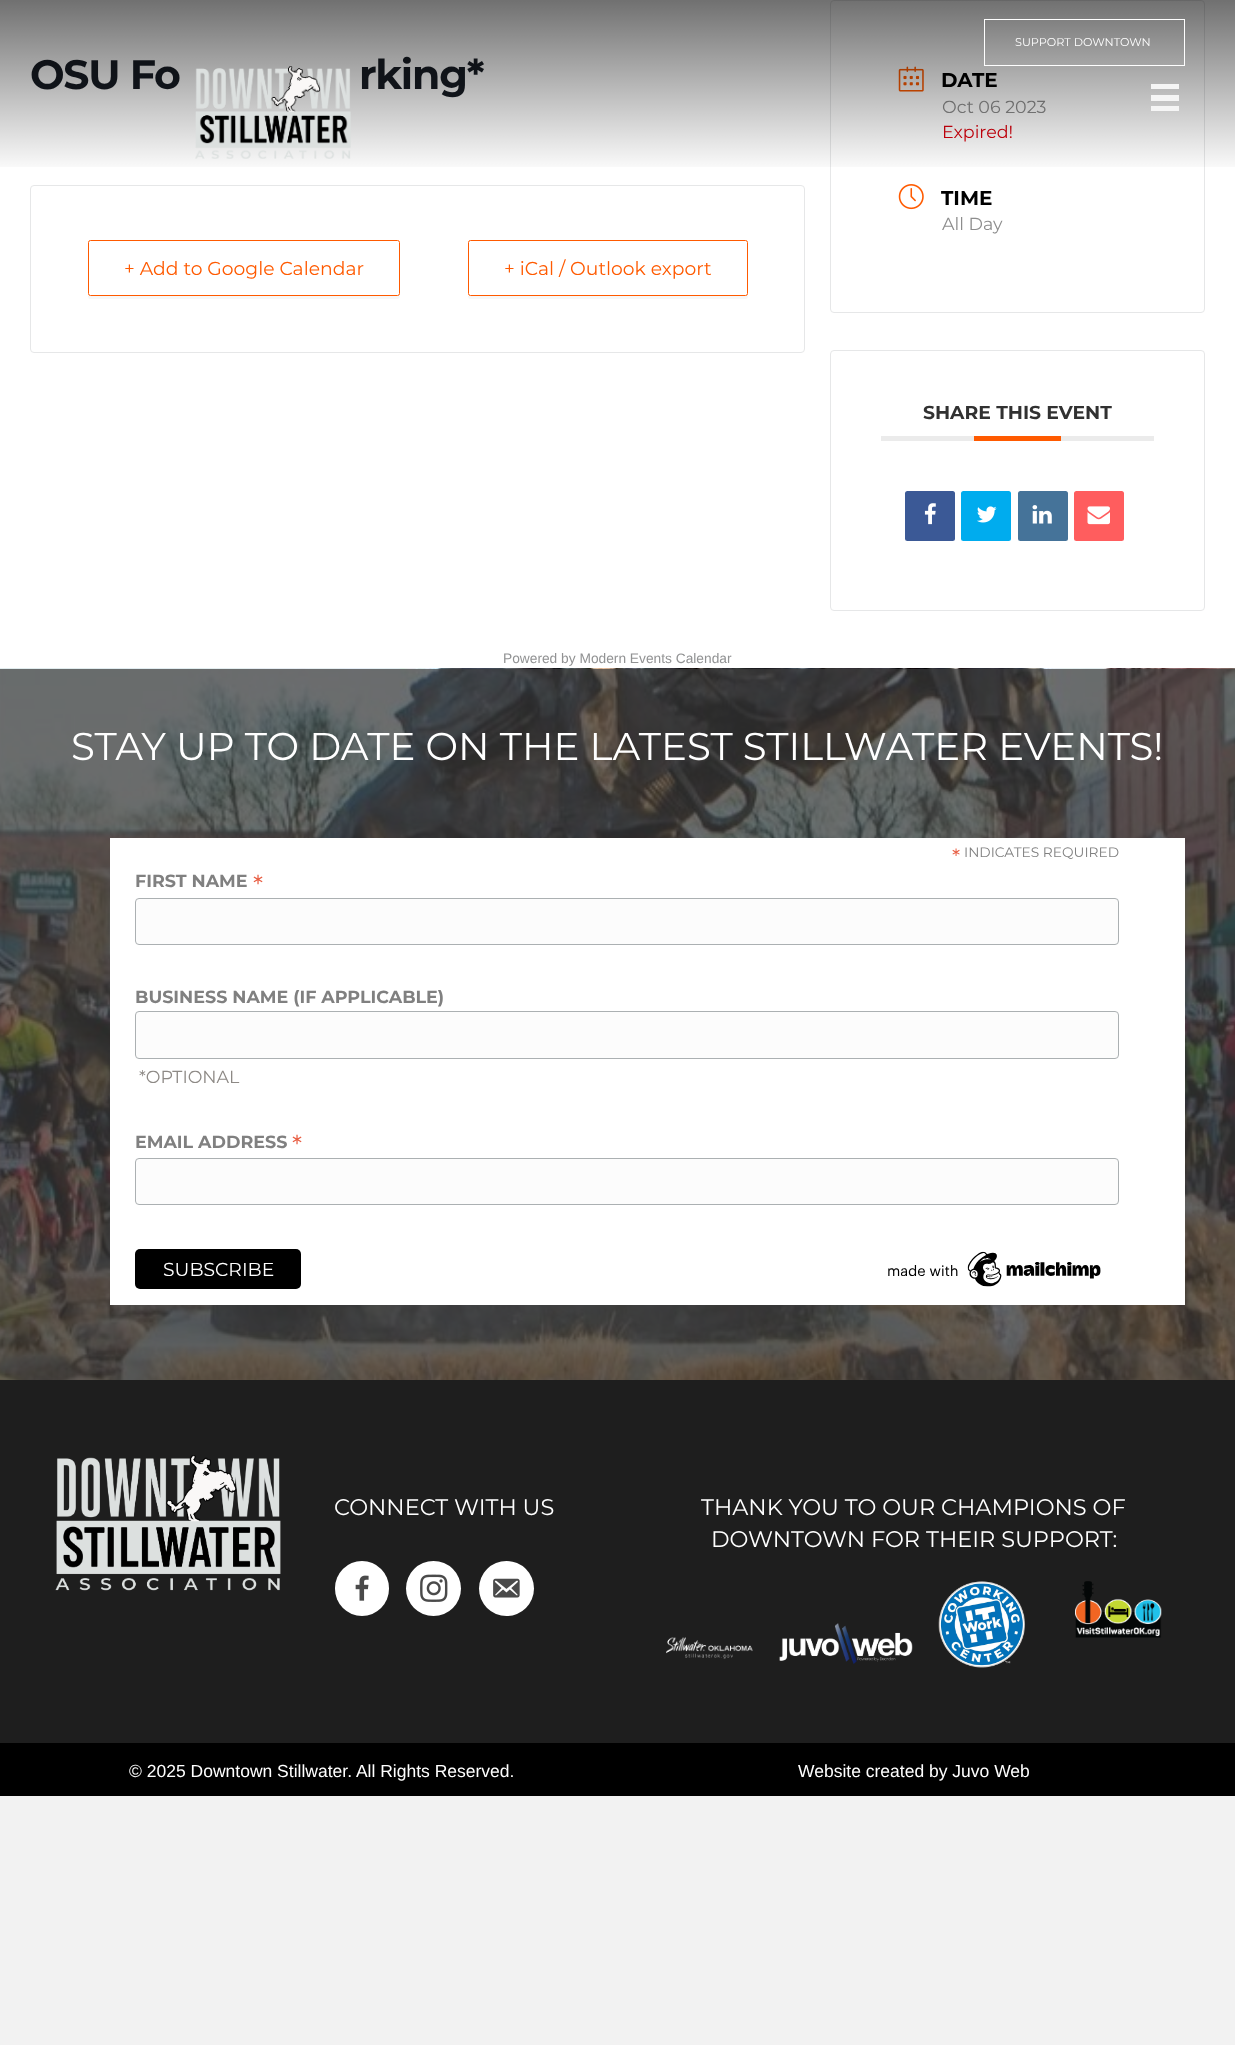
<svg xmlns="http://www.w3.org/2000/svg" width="1235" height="2045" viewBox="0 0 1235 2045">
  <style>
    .t1 { font: bold 41px Montserrat; letter-spacing: -1.25px; fill: #171c24; }
    .t2 { font: bold 20px Montserrat; fill: #000; }
    .t3 { font: 17.5px Montserrat; fill: #8d8d8d; }
    .t4 { font: 17.5px Montserrat; fill: #d8000c; }
    .t5 { font: 11.25px Montserrat; fill: #fff; }
    .t6 { font: 18.75px Montserrat; fill: #ff5a00; }
    .t7 { font: bold 18.75px Montserrat; fill: #313131; }
    .t8 { font: 13.75px Liberation Sans; fill: #919293; }
    .t9 { font: 38.75px Montserrat; fill: #fff; }
    .t10 { font: 21px Montserrat; fill: #e85c41; }
    .t11 { font: 13.75px Montserrat; fill: #808080; }
    .t12 { font: bold 17.5px Montserrat; fill: #808080; }
    .t13 { font: 26px Montserrat; fill: #e85c41; }
    .t14 { font: 17.5px Montserrat; fill: #8d8985; }
    .t15 { font: 18.75px Montserrat; fill: #fff; }
    .t16 { font: 22.5px Montserrat; fill: #fff; }
    .t17 { font: 17.5px Liberation Sans; fill: #fff; }
  </style>
  <defs>
    <linearGradient id="g1" gradientUnits="userSpaceOnUse" x1="618" y1="174" x2="618" y2="0"><stop offset="0" stop-color="#000" stop-opacity="0"/><stop offset="1" stop-color="#000" stop-opacity="0.56"/></linearGradient>
  </defs>
  <rect width="100%" height="100%" fill="#f2f2f2"/>
  <rect x="0" y="0" width="1235" height="668" fill="#fff"/>
  <text x="30" y="89" class="t1">OSU Fo</text>
  <text x="359" y="89" class="t1">rking*</text>
  <rect x="830.5" y="0.5" width="374" height="312" rx="3.5" fill="none" stroke="#e6e7e8"/>
  <image x="898" y="66" width="26" height="26" href="images/2.png"/>
  <text x="941" y="87" class="t2">DATE</text>
  <text x="942" y="113" class="t3">Oct 06 2023</text>
  <text x="942" y="138" class="t4">Expired!</text>
  <rect x="0" y="0" width="1235" height="167" fill="url(#g1)"/>
  <rect x="984.5" y="19.5" width="200" height="46" fill="none" stroke="#fff"/>
  <text x="1015" y="46" class="t5">SUPPORT DOWNTOWN</text>
  <image x="195" y="66" width="156" height="93" href="images/1.png"/>
  <rect x="1151" y="84" width="28" height="5" fill="#f5f5f5"/>
  <rect x="1151" y="95" width="28" height="6" fill="#f5f5f5"/>
  <rect x="1151" y="106" width="28" height="5" fill="#f5f5f5"/>
  <rect x="30.5" y="185.5" width="774" height="167" rx="3.5" fill="none" stroke="#e6e7e8"/>
  <path d="M88 295V297L89 299H90H398C400 298 400 296 400 294C400 295 399 296 398 296H90Z" fill="#f7f7f7"/>
  <rect x="88.5" y="240.5" width="311" height="55" rx="2" fill="none" stroke="#ff5a00"/>
  <text x="124" y="275" class="t6">+ Add to Google Calendar</text>
  <path d="M468 295V296C468 298 469 299 470 299H746C747 299 748 298 748 296V246V244V294C748 295 746 296 745 296H470C469 296 468 296 468 295Z" fill="#f7f7f7"/>
  <rect x="468.5" y="240.5" width="279" height="55" rx="2" fill="#fff" stroke="#ff5a00"/>
  <text x="504" y="275" class="t6">+ iCal / Outlook export</text>
  <image x="898" y="184" width="26" height="26" href="images/3.png"/>
  <text x="941" y="205" class="t2">TIME</text>
  <text x="942" y="230" class="t3">All Day</text>
  <rect x="830.5" y="350.5" width="374" height="260" rx="3.5" fill="none" stroke="#e6e7e8"/>
  <rect x="881" y="436" width="273" height="5" fill="#ebebeb"/>
  <text x="923" y="419" class="t7">SHARE THIS EVENT</text>
  <rect x="974" y="436" width="87" height="5" fill="#ff5a00"/>
  <rect x="905" y="491" width="50" height="50" rx="2.5" fill="#3b5996"/>
  <image x="924" y="503" width="12" height="22" href="images/4.png"/>
  <rect x="961" y="491" width="50" height="50" rx="2.5" fill="#00acee"/>
  <image x="977" y="506" width="20" height="17" href="images/5.png"/>
  <rect x="1018" y="491" width="50" height="50" rx="2.5" fill="#457399"/>
  <image x="1032" y="505" width="20" height="19" href="images/6.png"/>
  <rect x="1074" y="491" width="50" height="50" rx="2.5" fill="#ff5d5e"/>
  <image x="1087" y="506" width="23" height="19" href="images/7.png"/>
  <text x="503" y="663" class="t8">Powered by Modern Events Calendar</text>
  <image x="0" y="668" width="1235" height="712" href="images/8.png"/>
  <text x="71" y="760" class="t9">STAY UP TO DATE ON THE LATEST STILLWATER EVENTS!</text>
  <rect x="110" y="838" width="1075" height="467" fill="#fff"/>
  <text x="952" y="864" class="t10">*</text>
  <text x="964" y="857" class="t11">INDICATES REQUIRED</text>
  <text x="135" y="887" class="t12">FIRST NAME</text>
  <text x="253" y="894" class="t13">*</text>
  <rect x="135.5" y="898.5" width="983" height="46" rx="3.5" fill="#fcfcfc" stroke="#abb0b2"/>
  <text x="135" y="1003" class="t12">BUSINESS NAME (IF APPLICABLE)</text>
  <rect x="135.5" y="1011.5" width="983" height="47" rx="3.5" fill="#fcfcfc" stroke="#abb0b2"/>
  <text x="139" y="1083" class="t14">*OPTIONAL</text>
  <text x="135" y="1148" class="t12">EMAIL ADDRESS</text>
  <text x="292" y="1154" class="t13">*</text>
  <rect x="135.5" y="1158.5" width="983" height="46" rx="3.5" fill="#fcfcfc" stroke="#abb0b2"/>
  <rect x="135" y="1249" width="166" height="40" rx="5" fill="#000"/>
  <text x="163" y="1276" class="t15">SUBSCRIBE</text>
  <image x="888" y="1251" width="213" height="36" href="images/9.png"/>
  <rect x="0" y="1380" width="1235" height="363" fill="#1e1e1e"/>
  <image x="55" y="1455" width="226" height="136" href="images/10.png"/>
  <text x="334" y="1515" class="t16">CONNECT WITH US</text>
  <rect x="335" y="1561" width="54" height="55" rx="27" fill="#fff"/>
  <image x="355" y="1575" width="14" height="26" href="images/11.png"/>
  <circle cx="433.5" cy="1588.5" r="27.5" fill="#fff"/>
  <image x="420" y="1574" width="28" height="28" href="images/12.png"/>
  <circle cx="506.5" cy="1588.5" r="27.5" fill="#fff"/>
  <image x="493" y="1578" width="27" height="20" href="images/13.png"/>
  <text x="701" y="1515" class="t16">THANK YOU TO OUR CHAMPIONS OF</text>
  <text x="711" y="1547" class="t16">DOWNTOWN FOR THEIR SUPPORT:</text>
  <image x="938" y="1581" width="87" height="87" href="images/14.png"/>
  <image x="1075" y="1581" width="87" height="57" href="images/15.png"/>
  <image x="666" y="1637" width="87" height="22" href="images/16.png"/>
  <image x="779" y="1623" width="134" height="41" href="images/17.png"/>
  <rect x="0" y="1743" width="1235" height="53" fill="#000"/>
  <text x="129" y="1777" class="t17">© 2025 Downtown Stillwater. All Rights Reserved.</text>
  <text x="798" y="1777" class="t17">Website created by Juvo Web</text>
</svg>
